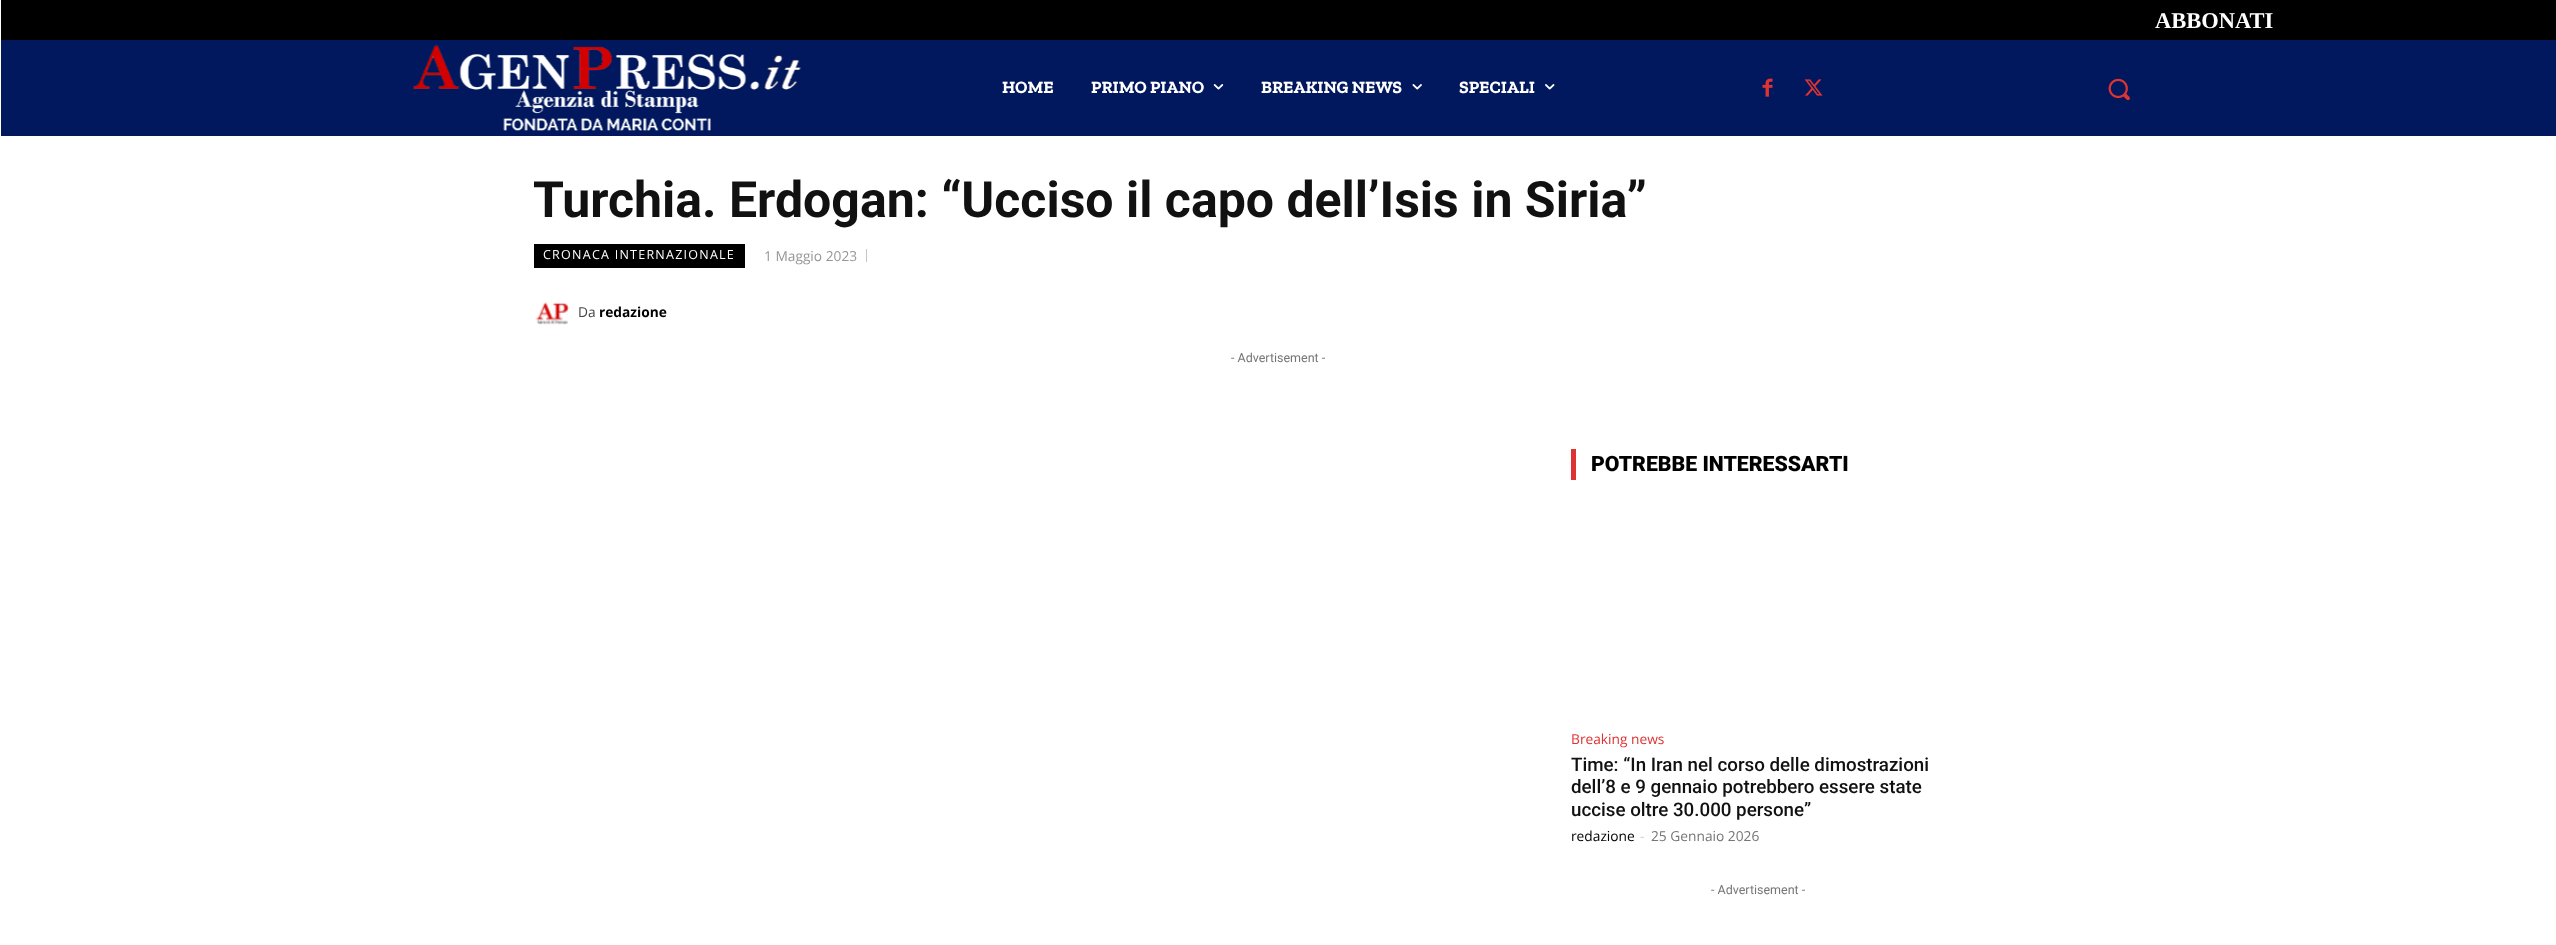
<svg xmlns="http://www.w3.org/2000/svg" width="2556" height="945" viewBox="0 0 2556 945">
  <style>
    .t1 { font: bold 22.5px Liberation Serif; fill: #fff; }
    .t2 { font: bold 17.5px Zilla Slab; fill: #fff; }
    .t3 { font: bold 50px Roboto; fill: #111; }
    .t4 { font: 12.5px Open Sans; letter-spacing: 1.25px; fill: #fff; }
    .t5 { font: 13.75px Open Sans; fill: #969696; }
    .t6 { font: 13.75px Open Sans; fill: #444; }
    .t7 { font: bold 13.75px Open Sans; fill: #000; }
    .t8 { font: 12.5px Roboto; fill: #767676; }
    .t9 { font: 900 21.25px Roboto; fill: #000; }
    .t10 { font: 13.75px Open Sans; fill: #d33; }
    .t11 { font: 500 18.75px Roboto; fill: #111; }
    .t12 { font: 13.75px Open Sans; fill: #000; }
    .t13 { font: 13.75px Open Sans; fill: #ccc; }
    .t14 { font: 13.75px Open Sans; fill: #767676; }
  </style>
  <rect width="100%" height="100%" fill="#fff"/>
  <rect x="1" y="0" width="2555" height="40" fill="#000"/>
  <text x="2155" y="28" class="t1">ABBONATI</text>
  <rect x="1" y="40" width="2555" height="96" fill="#01185e"/>
  <image x="413" y="45" width="389" height="86" href="images/1.png"/>
  <text x="1002" y="93" class="t2">HOME</text>
  <text x="1091" y="93" class="t2">PRIMO PIANO</text>
  <image x="1213" y="84" width="11" height="6" href="images/2.png"/>
  <text x="1261" y="93" class="t2">BREAKING NEWS</text>
  <image x="1412" y="84" width="10" height="6" href="images/3.png"/>
  <text x="1459" y="93" class="t2">SPECIALI</text>
  <image x="1545" y="84" width="10" height="6" href="images/4.png"/>
  <image x="1762" y="78" width="11" height="19" href="images/5.png"/>
  <image x="1804" y="79" width="19" height="17" href="images/6.png"/>
  <image x="2108" y="78" width="22" height="23" href="images/7.png"/>
  <text x="533" y="217" class="t3">Turchia. Erdogan: “Ucciso il capo dell’Isis in Siria”</text>
  <rect x="534" y="244" width="211" height="24" fill="#000"/>
  <text x="543" y="259" class="t4">CRONACA INTERNAZIONALE</text>
  <text x="764" y="261" class="t5">1 Maggio 2023</text>
  <rect x="866" y="249" width="1" height="13" fill="#c4c4c4"/>
  <image x="535" y="302" width="35" height="23" href="images/8.png"/>
  <text x="578" y="317" class="t6">Da</text>
  <text x="599" y="317" class="t7">redazione</text>
  <text x="1231" y="362" class="t8">- Advertisement -</text>
  <rect x="1571" y="449" width="5" height="31" fill="#d33"/>
  <text x="1591" y="471" class="t9">POTREBBE INTERESSARTI</text>
  <text x="1571" y="744" class="t10">Breaking news</text>
  <text x="1571" y="771" class="t11">Time: “In Iran nel corso delle dimostrazioni</text>
  <text x="1571" y="793" class="t11">dell’8 e 9 gennaio potrebbero essere state</text>
  <text x="1571" y="816" class="t11">uccise oltre 30.000 persone”</text>
  <text x="1571" y="841" class="t12">redazione</text>
  <text x="1640" y="841" class="t13">-</text>
  <text x="1651" y="841" class="t14">25 Gennaio 2026</text>
  <text x="1711" y="894" class="t8">- Advertisement -</text>
</svg>
